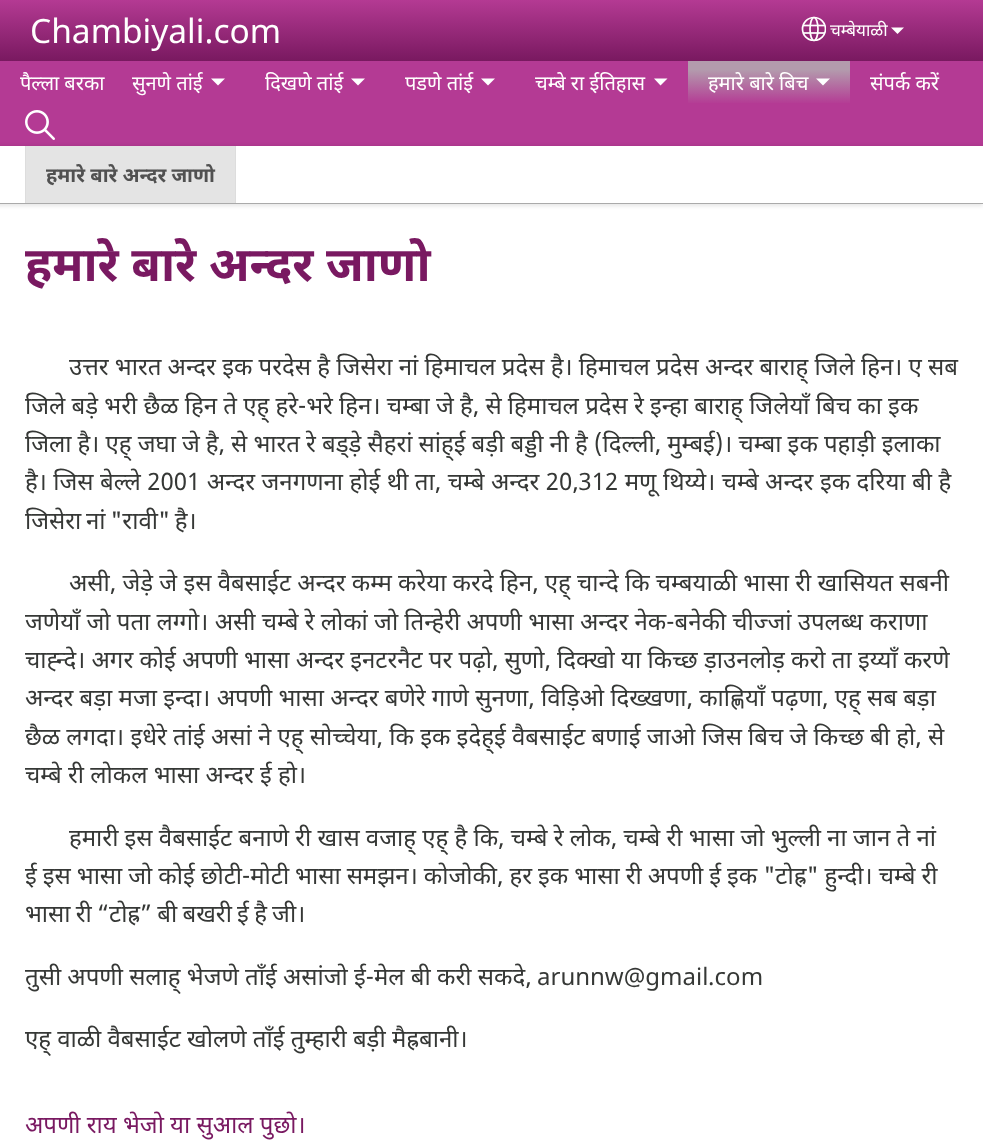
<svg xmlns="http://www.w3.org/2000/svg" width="983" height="1141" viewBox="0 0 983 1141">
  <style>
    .t1 { font: 33.5px Noto Sans; fill: #fffffe; }
    .t2 { font: 17px Noto Sans Devanagari; fill: #fffffe; }
    .t3 { font: 20px Noto Sans Devanagari; fill: #fffffe; }
    .t4 { font: bold 20px Noto Sans Devanagari; fill: #515151; }
    .t5 { font: bold 48px Noto Sans Devanagari; fill: #791961; }
    .t6 { font: 24px Noto Sans Devanagari; fill: #363836; }
    .t7 { font: 24px Noto Sans; fill: #363836; }
    .t8 { font: 24px Noto Sans Devanagari; fill: #791961; }
  </style>
  <defs>
    <linearGradient id="g1" gradientUnits="userSpaceOnUse" x1="492" y1="0" x2="492" y2="61"><stop offset="0" stop-color="#b43a93"/><stop offset="1" stop-color="#791960"/></linearGradient>
    <clipPath id="clip1"><rect x="801" y="9" width="25" height="32"/></clipPath>
    <linearGradient id="g2" gradientUnits="userSpaceOnUse" x1="769" y1="61" x2="769" y2="104"><stop offset="0.2" stop-color="#b39bad"/><stop offset="1" stop-color="#b43a94"/></linearGradient>
  </defs>
  <rect width="100%" height="100%" fill="#fff"/>
  <rect x="0" y="0" width="983" height="61" fill="url(#g1)"/>
  <text x="30" y="43" class="t1">Chambiyali.com</text>
  <g clip-path="url(#clip1)">
    <circle cx="814" cy="29" r="11.5" fill="none" stroke="#fffffe" stroke-width="1.7"/>
  </g>
  <ellipse cx="814" cy="29" rx="4" ry="11.5" fill="none" stroke="#fffffe" stroke-width="1.7"/>
  <path d="M803 25.5H824.5" fill="none" stroke="#fffffe" stroke-width="1.7"/>
  <rect x="803" y="32" width="22" height="2" fill="#fffffed9"/>
  <text x="830" y="36" class="t2">चम्बेयाळी</text>
  <path d="M891 27.5H904L897.5 34Z" fill="#fffffe"/>
  <rect x="0" y="61" width="983" height="85" fill="#b43a94"/>
  <text x="20" y="90" class="t3">पैल्ला बरका</text>
  <rect x="688" y="61" width="162" height="42" fill="url(#g2)"/>
  <text x="708" y="90" class="t3">हमारे बारे बिच</text>
  <path d="M816 78.5H830L823 85.5Z" fill="#feffff"/>
  <image x="25" y="110" width="30" height="30" href="images/1.png"/>
  <rect x="-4" y="146" width="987" height="60" fill="#0000001a" filter="blur(2px)"/>
  <rect x="0" y="146" width="983" height="57" fill="#fff"/>
  <rect x="0" y="203" width="983" height="1" fill="#aaa"/>
  <rect x="26" y="146" width="209" height="57" fill="#e4e4e4"/>
  <rect x="235" y="146" width="1" height="57" fill="#ddd"/>
  <rect x="25" y="146" width="1" height="57" fill="#ddd"/>
  <text x="46" y="182" class="t4">हमारे बारे अन्दर जाणो</text>
  <text x="132" y="90" class="t3">सुनणे तांई</text>
  <path d="M211 78.5H225L218 85.5Z" fill="#feffff"/>
  <text x="265" y="90" class="t3">दिखणे तांई</text>
  <path d="M351 78.5H365L358 85.5Z" fill="#feffff"/>
  <text x="405" y="90" class="t3">पडणे तांई</text>
  <path d="M481 78.5H495L488 85.5Z" fill="#feffff"/>
  <text x="535" y="90" class="t3">चम्बे रा ईतिहास</text>
  <path d="M654 78.5H667.5L660.5 85.5Z" fill="#feffff"/>
  <text x="870" y="90" class="t3">संपर्क करें</text>
  <text x="25" y="281" class="t5">हमारे बारे अन्दर जाणो</text>
  <text x="69" y="375" class="t6">उत्तर भारत अन्दर इक परदेस है जिसेरा नां हिमाचल प्रदेस है। हिमाचल प्रदेस अन्दर बाराह् जिले हिन। ए सब</text>
  <text x="25" y="414" class="t6">जिले बड़े भरी छैळ हिन ते एह् हरे-भरे हिन। चम्बा जे है, से हिमाचल प्रदेस रे इन्हा बाराह् जिलेयाँ बिच का इक</text>
  <text x="25" y="452" word-spacing="-0.15" class="t6">जिला है। एह् जघा जे है, से भारत रे बड्ड़े सैहरां सांह्ई बड़ी बड्डी नी है (दिल्ली, मुम्बई)। चम्बा इक पहाड़ी इलाका</text>
  <text x="25" y="490" word-spacing="0.25" class="t6">है। जिस बेल्ले 2001 अन्दर जनगणना होई थी ता, चम्बे अन्दर 20,312 मणू थिय्ये। चम्बे अन्दर इक दरिया बी है</text>
  <text x="25" y="529" word-spacing="-1.5" class="t6">जिसेरा नां "रावी" है।</text>
  <text x="69" y="591" class="t6">असी, जेड़े जे इस वैबसाईट अन्दर कम्म करेया करदे हिन, एह् चान्दे कि चम्बयाळी भासा री खासियत सबनी</text>
  <text x="25" y="630" class="t6">जणेयाँ जो पता लग्गो। असी चम्बे रे लोकां जो तिन्हेरी अपणी भासा अन्दर नेक-बनेकी चीज्जां उपलब्ध कराणा</text>
  <text x="25" y="668" class="t6">चाह्न्दे। अगर कोई अपणी भासा अन्दर इनटरनैट पर पढ़ो, सुणो, दिक्खो या किच्छ ड़ाउनलोड़ करो ता इय्याँ करणे</text>
  <text x="25" y="706" class="t6">अन्दर बड़ा मजा इन्दा। अपणी भासा अन्दर बणेरे गाणे सुनणा, विड़िओ दिख्खणा, काह्णियाँ पढ़णा, एह् सब बड़ा</text>
  <text x="25" y="745" class="t6">छैळ लगदा। इधेरे तांई असां ने एह् सोच्चेया, कि इक इदेह्ई वैबसाईट बणाई जाओ जिस बिच जे किच्छ बी हो, से</text>
  <text x="25" y="783" class="t6">चम्बे री लोकल भासा अन्दर ई हो।</text>
  <text x="69" y="846" class="t6">हमारी इस वैबसाईट बनाणे री खास वजाह् एह् है कि, चम्बे रे लोक, चम्बे री भासा जो भुल्ली ना जान ते नां</text>
  <text x="25" y="884" word-spacing="-0.25" class="t6">ई इस भासा जो कोई छोटी-मोटी भासा समझन। कोजोकी, हर इक भासा री अपणी ई इक "टोह्र" हुन्दी। चम्बे री</text>
  <text x="25" y="922" word-spacing="-1" class="t6">भासा री “टोह्र” बी बखरी ई है जी।</text>
  <text x="25" y="985" class="t6">तुसी अपणी सलाह् भेजणे ताँई असांजो ई-मेल बी करी सकदे,</text>
  <text x="537" y="985" class="t7">arunnw@gmail com</text>
  <text x="708" y="985" class="t6">.</text>
  <text x="25" y="1047" class="t6">एह् वाळी वैबसाईट खोलणे ताँई तुम्हारी बड़ी मैह्रबानी।</text>
  <text x="25" y="1133" class="t8">अपणी राय भेजो या सुआल पुछो।</text>
</svg>
